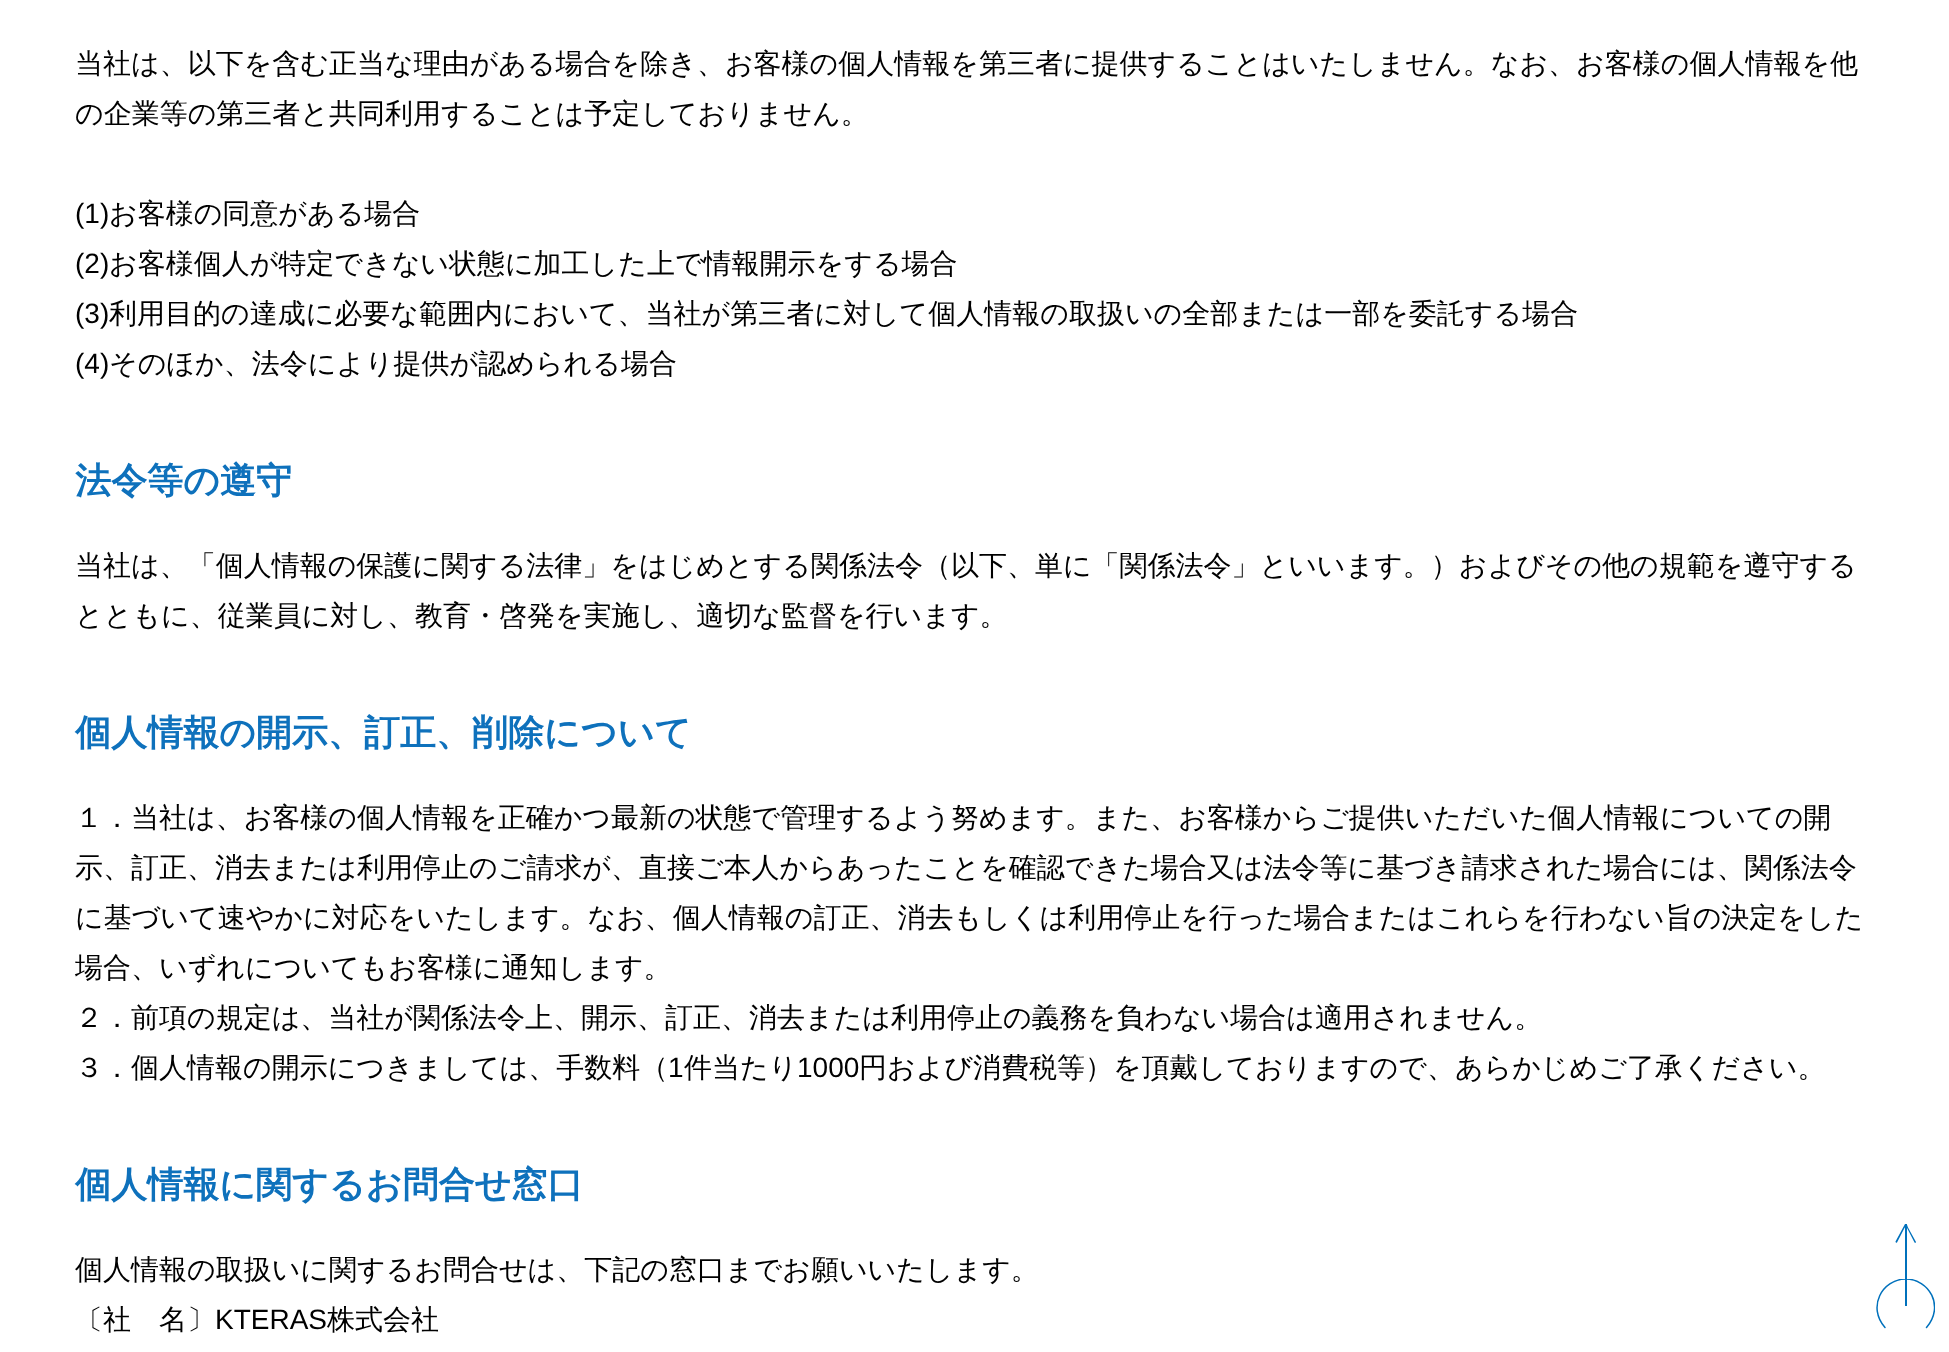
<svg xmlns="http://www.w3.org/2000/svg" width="1949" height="1352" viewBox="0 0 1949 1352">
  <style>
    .t1 { font: 500 28px WenQuanYi Zen Hei; fill: #000; }
    .t2 { font: 28px Liberation Sans; fill: #000; }
    .t3 { font: bold 36px WenQuanYi Zen Hei; fill: #0e71bc; }
  </style>
  <defs>
    <clipPath id="clip1"><path d="M1875 1329.5V1279H1935V1329.5Z"/></clipPath>
  </defs>
  <rect width="100%" height="100%" fill="#fff"/>
  <text x="75" y="73" class="t1">当社は、以下を含む正当な理由がある場合を除き、お客様の個人情報を第三者に提供することはいたしません。なお、お客様の個人情報を他</text>
  <text x="75" y="123" class="t1">の企業等の第三者と共同利用することは予定しておりません。</text>
  <text x="75" y="223" class="t2">(1)</text>
  <text x="109" y="223" class="t1">お客様の同意がある場合</text>
  <text x="75" y="273" class="t2">(2)</text>
  <text x="109" y="273" class="t1">お客様個人が特定できない状態に加工した上で情報開示をする場合</text>
  <text x="75" y="323" class="t2">(3)</text>
  <text x="109" y="323" class="t1">利用目的の達成に必要な範囲内において、当社が第三者に対して個人情報の取扱いの全部または一部を委託する場合</text>
  <text x="75" y="373" class="t2">(4)</text>
  <text x="109" y="373" class="t1">そのほか、法令により提供が認められる場合</text>
  <text x="75" y="493" class="t3">法令等の遵守</text>
  <text x="75" y="575" class="t1">当社は、「個人情報の保護に関する法律」をはじめとする関係法令（以下、単に「関係法令」といいます。）およびその他の規範を遵守する</text>
  <text x="75" y="625" class="t1">とともに、従業員に対し、教育・啓発を実施し、適切な監督を行います。</text>
  <text x="75" y="745" class="t3">個人情報の開示、訂正、削除について</text>
  <text x="75" y="827" class="t1">１．当社は、お客様の個人情報を正確かつ最新の状態で管理するよう努めます。また、お客様からご提供いただいた個人情報についての開</text>
  <text x="75" y="877" class="t1">示、訂正、消去または利用停止のご請求が、直接ご本人からあったことを確認できた場合又は法令等に基づき請求された場合には、関係法令</text>
  <text x="75" y="927" class="t1">に基づいて速やかに対応をいたします。なお、個人情報の訂正、消去もしくは利用停止を行った場合またはこれらを行わない旨の決定をした</text>
  <text x="75" y="977" class="t1">場合、いずれについてもお客様に通知します。</text>
  <text x="75" y="1027" class="t1">２．前項の規定は、当社が関係法令上、開示、訂正、消去または利用停止の義務を負わない場合は適用されません。</text>
  <text x="75" y="1077" class="t1">３．個人情報の開示につきましては、手数料（</text>
  <text x="668" y="1077" class="t2">1</text>
  <text x="684" y="1077" class="t1">件当たり</text>
  <text x="797" y="1077" class="t2">1000</text>
  <text x="859" y="1077" class="t1">円および消費税等）を頂戴しておりますので、あらかじめご了承ください。</text>
  <text x="75" y="1197" class="t3">個人情報に関するお問合せ窓口</text>
  <text x="75" y="1279" class="t1">個人情報の取扱いに関するお問合せは、下記の窓口までお願いいたします。</text>
  <text x="75" y="1329" class="t1">〔社　名〕</text>
  <text x="215" y="1329" class="t2">KTERAS</text>
  <text x="327" y="1329" class="t1">株式会社</text>
  <g clip-path="url(#clip1)">
    <path d="M1885 1327.5C1867 1307 1882 1279.5 1905.5 1279C1929 1279 1945 1306 1926.5 1327.5" fill="none" stroke="#0071bc" stroke-width="1.5" stroke-linecap="round"/>
  </g>
  <rect x="1905" y="1224" width="2" height="82" fill="#0071bc"/>
  <path d="M1895.5 1241.5L1905 1224H1906C1907 1225 1905.5 1226.5 1904.5 1228L1897 1242.5C1896 1243 1895.5 1242.5 1895.5 1241.5Z" fill="#0071bc"/>
  <path d="M1914.5 1242.5L1905.5 1225V1224C1907 1223.5 1907.5 1226 1908 1227.5L1916 1242C1916 1243 1915 1243 1914.5 1242.5Z" fill="#0071bc"/>
</svg>
